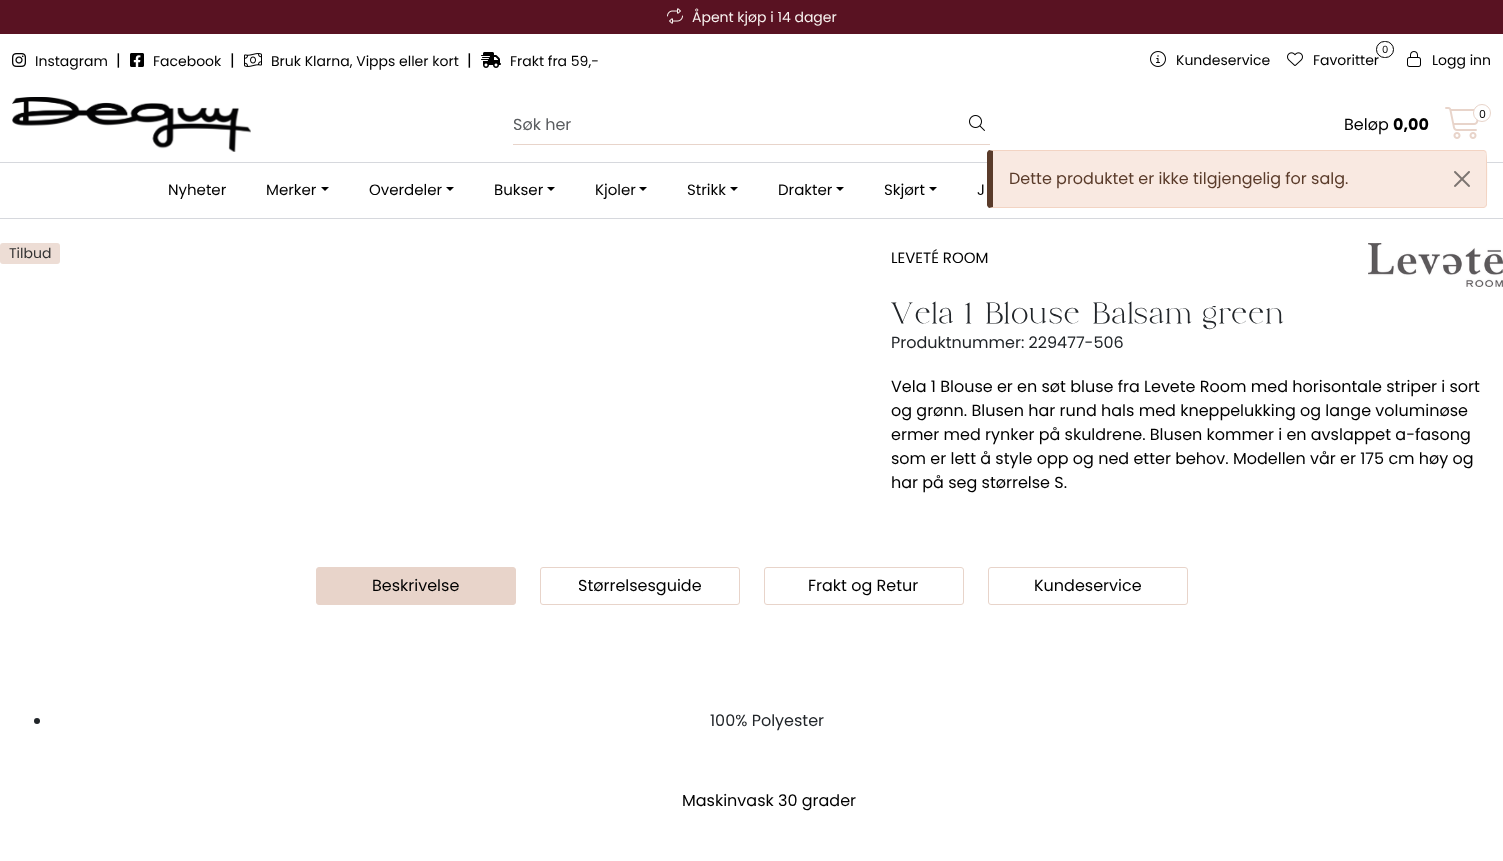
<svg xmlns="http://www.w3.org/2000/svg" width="1503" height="861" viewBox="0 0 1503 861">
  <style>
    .t1 { font: 14px Poppins; fill: #f7f1ee; }
    .t2 { font: 14px Poppins; fill: #000; }
    .t3 { font: 16px Poppins; fill: #000; }
    .t4 { font: 10px Poppins; fill: #000; }
    .t5 { font: 16px Poppins; fill: #595c5f; }
    .t6 { font: 11px Poppins; fill: #000; }
    .t7 { font: bold 16px Poppins; fill: #000; }
    .t8 { font: 15px Poppins; fill: #000; }
    .t9 { font: 16px Poppins; fill: #5a3b2a; }
    .t10 { font: 14px Poppins; fill: #333; }
    .t11 { font: 28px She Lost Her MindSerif; letter-spacing: 2px; fill: #212529; }
    .t12 { font: 16px Poppins; fill: #212529; }
  </style>
  <rect width="100%" height="100%" fill="#fff"/>
  <rect x="0" y="0" width="1503" height="34" fill="#591222"/>
  <image x="667" y="8" width="16" height="16" href="images/1.png"/>
  <text x="692" y="22" class="t1">Åpent kjøp i 14 dager</text>
  <image x="12" y="53" width="14" height="14" href="images/2.png"/>
  <text x="35" y="66" class="t2">Instagram</text>
  <text x="116" y="66" class="t3">|</text>
  <image x="130" y="53" width="14" height="14" href="images/3.png"/>
  <text x="153" y="66" class="t2">Facebook</text>
  <text x="230" y="66" class="t3">|</text>
  <image x="244" y="53" width="18" height="14" href="images/4.png"/>
  <text x="271" y="66" class="t2">Bruk Klarna, Vipps eller kort</text>
  <text x="467" y="66" class="t3">|</text>
  <image x="481" y="52" width="20" height="16" href="images/5.png"/>
  <text x="510" y="66" class="t2">Frakt fra 59,-</text>
  <image x="1150" y="51" width="16" height="16" href="images/6.png"/>
  <text x="1176" y="65" class="t2">Kundeservice</text>
  <rect x="1376.5" y="41.5" width="17" height="16" rx="8" fill="none" stroke="#000"/>
  <text x="1382" y="53" class="t4">0</text>
  <image x="1287" y="52" width="16" height="14" href="images/7.png"/>
  <text x="1313" y="65" class="t2">Favoritter</text>
  <image x="1407" y="51" width="14" height="16" href="images/8.png"/>
  <text x="1432" y="65" class="t2">Logg inn</text>
  <image x="12" y="97" width="239" height="55" href="images/9.png"/>
  <rect x="513" y="144" width="477" height="1" fill="#e8d4ca"/>
  <text x="513" y="130" class="t5">Søk her</text>
  <image x="969" y="115" width="16" height="16" href="images/10.png"/>
  <image x="1445" y="107" width="34" height="32" href="images/11.png"/>
  <circle cx="1482" cy="113" r="8.5" fill="#fff" stroke="#e8d4ca"/>
  <text x="1479" y="118" class="t6">0</text>
  <text x="1344" y="130" class="t3">Beløp</text>
  <text x="1393" y="130" class="t7">0,00</text>
  <rect x="0" y="162" width="1503" height="1" fill="#d6d8dd"/>
  <rect x="0" y="218" width="1503" height="1" fill="#d6d8dd"/>
  <text x="168" y="195" class="t8">Nyheter</text>
  <text x="266" y="195" class="t8">Merker</text>
  <path d="M321 187H329L325 191Z" fill="#000"/>
  <text x="369" y="195" class="t8">Overdeler</text>
  <path d="M446 187H454L450 191Z" fill="#000"/>
  <text x="494" y="195" class="t8">Bukser</text>
  <path d="M547 187H555L551 191Z" fill="#000"/>
  <text x="595" y="195" class="t8">Kjoler</text>
  <path d="M639 187H647L643 191Z" fill="#000"/>
  <text x="687" y="195" class="t8">Strikk</text>
  <path d="M730 187H738L734 191Z" fill="#000"/>
  <text x="778" y="195" class="t8">Drakter</text>
  <path d="M836 187H844L840 191Z" fill="#000"/>
  <text x="884" y="195" class="t8">Skjørt</text>
  <path d="M929 187H937L933 191Z" fill="#000"/>
  <text x="977" y="195" class="t8">J</text>
  <path d="M993 151H1484C1485 151 1486 152 1486 153V205C1486 206 1485 207 1484 207H993Z" fill="#f9e9e1"/>
  <path d="M990 150H989L993 151H1484L1485 152L1486 151L1484 150Z" fill="#f3d4c3"/>
  <path d="M1487 205C1487 199 1488 153 1486 151L1485 152L1486 153V205L1485 206L1486 207Z" fill="#f3d4c3"/>
  <path d="M990 208H1484L1486 207L1485 206L1484 207H993L989 208Z" fill="#f3d4c3"/>
  <path d="M993 151L989 150C988 151 987 152 987 153V205C987 206 988 207 989 208L993 207Z" fill="#5a3b2a"/>
  <text x="1009" y="184" class="t9">Dette produktet er ikke tilgjengelig for salg.</text>
  <image x="1454" y="171" width="16" height="16" href="images/12.png"/>
  <rect x="0" y="243" width="60" height="21" rx="3" fill="#edddd5"/>
  <text x="9" y="258" class="t10">Tilbud</text>
  <text x="891" y="263" class="t8">LEVETÉ ROOM</text>
  <text x="891" y="323" class="t11">Vela 1 Blouse Balsam green</text>
  <text x="891" y="348" class="t12">Produktnummer: 229477-506</text>
  <image x="1368" y="243" width="135" height="44" href="images/13.png"/>
  <text x="891" y="392" class="t3">Vela 1 Blouse er en søt bluse fra Levete Room med horisontale striper i sort</text>
  <text x="891" y="416" class="t3">og grønn. Blusen har rund hals med kneppelukking og lange voluminøse</text>
  <text x="891" y="440" class="t3">ermer med rynker på skuldrene. Blusen kommer i en avslappet a-fasong</text>
  <text x="891" y="464" class="t3">som er lett å style opp og ned etter behov. Modellen vår er 175 cm høy og</text>
  <text x="891" y="488" class="t3">har på seg størrelse S.</text>
  <rect x="316.5" y="567.5" width="199" height="37" rx="2.5" fill="#e8d4ca" stroke="#e8d4ca"/>
  <text x="372" y="591" class="t3">Beskrivelse</text>
  <rect x="540.5" y="567.5" width="199" height="37" rx="2.5" fill="none" stroke="#e8d4ca"/>
  <text x="578" y="591" class="t3">Størrelsesguide</text>
  <rect x="764.5" y="567.5" width="199" height="37" rx="2.5" fill="none" stroke="#e8d4ca"/>
  <text x="808" y="591" class="t3">Frakt og Retur</text>
  <rect x="988.5" y="567.5" width="199" height="37" rx="2.5" fill="none" stroke="#e8d4ca"/>
  <text x="1034" y="591" class="t3">Kundeservice</text>
  <circle cx="37" cy="721" r="3" fill="#212529"/>
  <text x="710" y="726" class="t12">100% Polyester</text>
  <text x="682" y="806" class="t3">Maskinvask 30 grader</text>
</svg>
